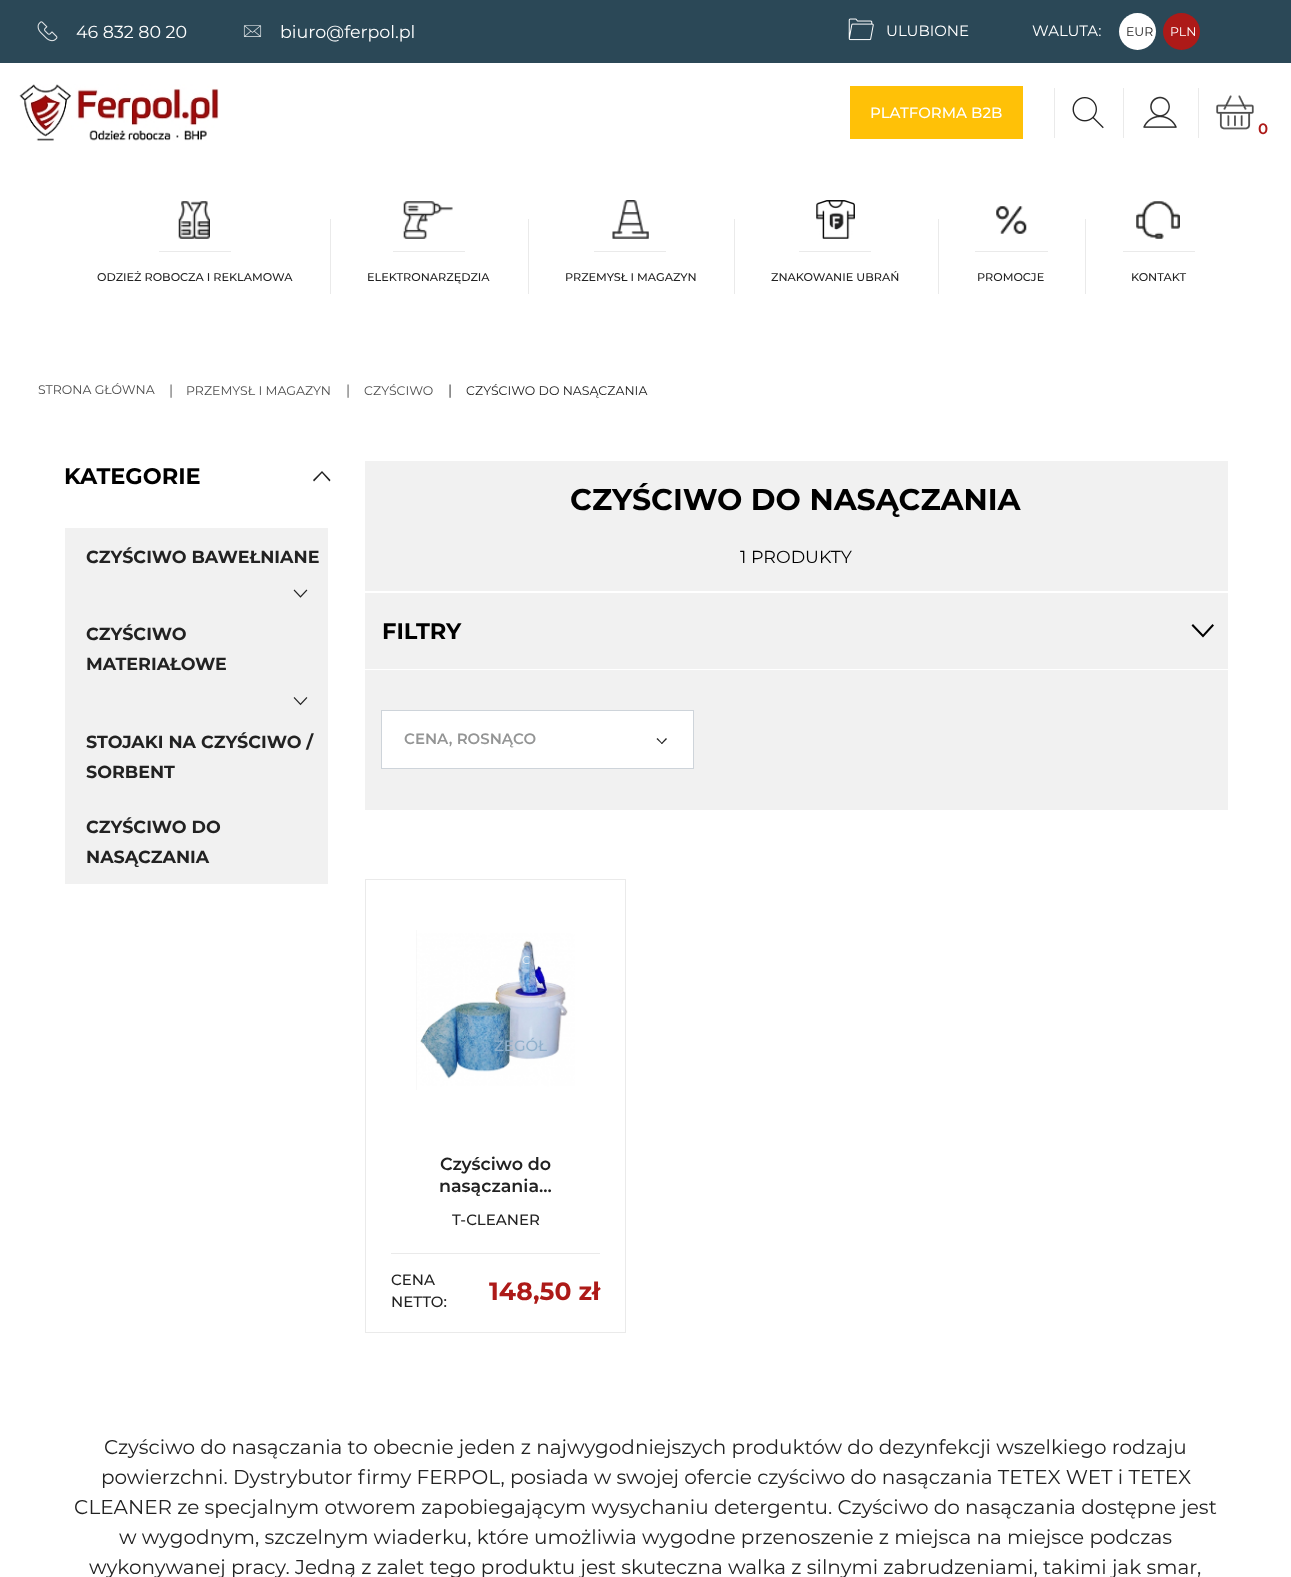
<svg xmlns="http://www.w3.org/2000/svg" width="1291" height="1577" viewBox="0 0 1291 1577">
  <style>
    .t1 { font: 17.5px Montserrat; fill: #fff; }
    .t2 { font: 15px Montserrat; fill: #fff; }
    .t3 { font: 12.5px Montserrat; fill: #222; }
    .t4 { font: 12.5px Montserrat; fill: #fff; }
    .t5 { font: 500 15px Montserrat; fill: #fff; }
    .t6 { font: 600 15px Montserrat; fill: #ad1a18; }
    .t7 { font: 500 11.25px Montserrat; fill: #222; }
    .t8 { font: 12.5px Montserrat; fill: #4e4e4e; }
    .t9 { font: 14px Montserrat; fill: #4e4e4e; }
    .t10 { font: 14px Montserrat; fill: #222; }
    .t11 { font: bold 22.5px Montserrat; fill: #000; }
    .t12 { font: bold 17.5px Montserrat; fill: #222; }
    .t13 { font: bold 30px Montserrat; fill: #000; }
    .t14 { font: 17.5px Montserrat; fill: #000; }
    .t15 { font: 600 15px Montserrat; fill: #949595; }
    .t16 { font: 11.25px Montserrat; fill: #eef2f6; }
    .t17 { font: 500 15px Montserrat; fill: #90b0cc; }
    .t18 { font: 600 17.5px Montserrat; fill: #222; }
    .t19 { font: 500 15px Montserrat; fill: #222; }
    .t20 { font: bold 25px Montserrat; fill: #ad1a18; }
    .t21 { font: 20px Montserrat; fill: #222; }
  </style>
  <rect width="100%" height="100%" fill="#fff"/>
  <rect x="0" y="0" width="1291" height="63" fill="#2b4857"/>
  <image x="37" y="21" width="21" height="21" href="images/1.png"/>
  <text x="76" y="38" class="t1">46 832 80 20</text>
  <image x="243" y="25" width="19" height="12" href="images/2.png"/>
  <text x="280" y="38" class="t1">biuro@ferpol.pl</text>
  <image x="848" y="18" width="26" height="23" href="images/3.png"/>
  <text x="886" y="36" class="t2">ULUBIONE</text>
  <text x="1032" y="36" class="t2">WALUTA:</text>
  <circle cx="1137.5" cy="31.5" r="18.5" fill="#fff"/>
  <text x="1126" y="36" class="t3">EUR</text>
  <circle cx="1181.5" cy="31.5" r="18.5" fill="#ad1a18"/>
  <text x="1170" y="36" class="t4">PLN</text>
  <image x="19" y="84" width="200" height="57" href="images/4.png"/>
  <rect x="850" y="86" width="173" height="53" fill="#ffc107"/>
  <text x="870" y="118" class="t5">PLATFORMA B2B</text>
  <rect x="1054" y="88" width="1" height="50" fill="#eaeaea"/>
  <image x="1072" y="97" width="32" height="32" href="images/5.png"/>
  <rect x="1123" y="88" width="1" height="50" fill="#eaeaea"/>
  <image x="1143" y="96" width="34" height="32" href="images/6.png"/>
  <rect x="1198" y="88" width="1" height="50" fill="#eaeaea"/>
  <image x="1216" y="95" width="38" height="35" href="images/7.png"/>
  <text x="1258" y="134" class="t6">0</text>
  <rect x="159" y="251" width="72" height="1" fill="#eaeaea"/>
  <image x="178" y="201" width="32" height="38" href="images/8.png"/>
  <text x="97" y="281" class="t7">ODZIEŻ ROBOCZA I REKLAMOWA</text>
  <rect x="330" y="219" width="1" height="75" fill="#eaeaea"/>
  <rect x="393" y="251" width="72" height="1" fill="#eaeaea"/>
  <image x="403" y="201" width="50" height="38" href="images/9.png"/>
  <text x="367" y="281" class="t7">ELEKTRONARZĘDZIA</text>
  <rect x="528" y="219" width="1" height="75" fill="#eaeaea"/>
  <rect x="594" y="251" width="72" height="1" fill="#eaeaea"/>
  <image x="612" y="200" width="37" height="39" href="images/10.png"/>
  <text x="565" y="281" class="t7">PRZEMYSŁ I MAGAZYN</text>
  <rect x="734" y="219" width="1" height="75" fill="#eaeaea"/>
  <rect x="799" y="251" width="72" height="1" fill="#eaeaea"/>
  <image x="816" y="200" width="39" height="39" href="images/11.png"/>
  <text x="771" y="281" class="t7">ZNAKOWANIE UBRAŃ</text>
  <rect x="938" y="219" width="1" height="75" fill="#eaeaea"/>
  <rect x="975" y="251" width="73" height="1" fill="#eaeaea"/>
  <image x="996" y="206" width="31" height="28" href="images/12.png"/>
  <text x="977" y="281" class="t7">PROMOCJE</text>
  <rect x="1085" y="219" width="1" height="75" fill="#eaeaea"/>
  <rect x="1123" y="251" width="72" height="1" fill="#eaeaea"/>
  <image x="1136" y="201" width="44" height="38" href="images/13.png"/>
  <text x="1131" y="281" class="t7">KONTAKT</text>
  <text x="38" y="394" class="t8">STRONA GŁÓWNA</text>
  <text x="169" y="395" class="t9">|</text>
  <text x="186" y="395" class="t8">PRZEMYSŁ I MAGAZYN</text>
  <text x="346" y="395" class="t9">|</text>
  <text x="364" y="395" class="t8">CZYŚCIWO</text>
  <text x="448" y="395" class="t10">|</text>
  <text x="466" y="395" class="t3">CZYŚCIWO DO NASĄCZANIA</text>
  <text x="64" y="484" class="t11">KATEGORIE</text>
  <path d="M322 473L314 481.5L313 480L322 471L330.5 480L329.5 481.5Z" fill="#222"/>
  <rect x="65" y="528" width="263" height="356" fill="#f1f1f1"/>
  <text x="86" y="563" class="t12">CZYŚCIWO BAWEŁNIANE</text>
  <image x="293" y="589" width="15" height="9" href="images/14.png"/>
  <text x="86" y="640" class="t12">CZYŚCIWO</text>
  <text x="86" y="670" class="t12">MATERIAŁOWE</text>
  <image x="293" y="697" width="15" height="9" href="images/15.png"/>
  <text x="86" y="748" class="t12">STOJAKI NA CZYŚCIWO /</text>
  <text x="86" y="778" class="t12">SORBENT</text>
  <text x="86" y="833" class="t12">CZYŚCIWO DO</text>
  <text x="86" y="863" class="t12">NASĄCZANIA</text>
  <rect x="365" y="461" width="863" height="130" fill="#f1f1f1"/>
  <text x="570" y="510" class="t13">CZYŚCIWO DO NASĄCZANIA</text>
  <text x="740" y="563" class="t14">1 PRODUKTY</text>
  <rect x="365" y="593" width="863" height="76" fill="#f1f1f1"/>
  <text x="382" y="639" class="t11">FILTRY</text>
  <path d="M1203 634.5L1212.5 624L1214 625.5L1203 637.5L1191.5 625.5L1193 624Z" fill="#000"/>
  <rect x="365" y="670" width="863" height="140" fill="#f1f1f1"/>
  <rect x="381.5" y="710.5" width="312" height="58" fill="#fff" stroke="#ced4da"/>
  <text x="404" y="744" class="t15">CENA, ROSNĄCO</text>
  <path d="M666 738L667 739L662 744L661 743.5Z" fill="#222"/>
  <path d="M657.5 738L662.5 743.5L662 744L656.5 739Z" fill="#222"/>
  <rect x="365.5" y="879.5" width="260" height="453" fill="none" stroke="#eaeaea"/>
  <rect x="416" y="930" width="1" height="160" fill="#f2f2f2"/>
  <image x="416" y="930" width="159" height="160" href="images/16.png"/>
  <text x="522" y="964" class="t16">C</text>
  <text x="494" y="1051" class="t17">ZEGÓŁ</text>
  <text x="440" y="1170" class="t18">Czyściwo do</text>
  <text x="439" y="1192" class="t18">nasączania...</text>
  <text x="452" y="1225" class="t19">T-CLEANER</text>
  <rect x="391" y="1253" width="209" height="1" fill="#eaeaea"/>
  <text x="391" y="1285" class="t19">CENA</text>
  <text x="391" y="1307" class="t19">NETTO:</text>
  <text x="489" y="1300" class="t20">148,50 zł</text>
  <text x="104" y="1454" class="t21">Czyściwo do nasączania to obecnie jeden z najwygodniejszych produktów do dezynfekcji wszelkiego rodzaju</text>
  <text x="101" y="1484" class="t21">powierzchni. Dystrybutor firmy FERPOL, posiada w swojej ofercie czyściwo do nasączania TETEX WET i TETEX</text>
  <text x="74" y="1514" class="t21">CLEANER ze specjalnym otworem zapobiegającym wysychaniu detergentu. Czyściwo do nasączania dostępne jest</text>
  <text x="119" y="1544" class="t21">w wygodnym, szczelnym wiaderku, które umożliwia wygodne przenoszenie z miejsca na miejsce podczas</text>
  <text x="89" y="1574" class="t21">wykonywanej pracy. Jedną z zalet tego produktu jest skuteczna walka z silnymi zabrudzeniami, takimi jak smar,</text>
</svg>
